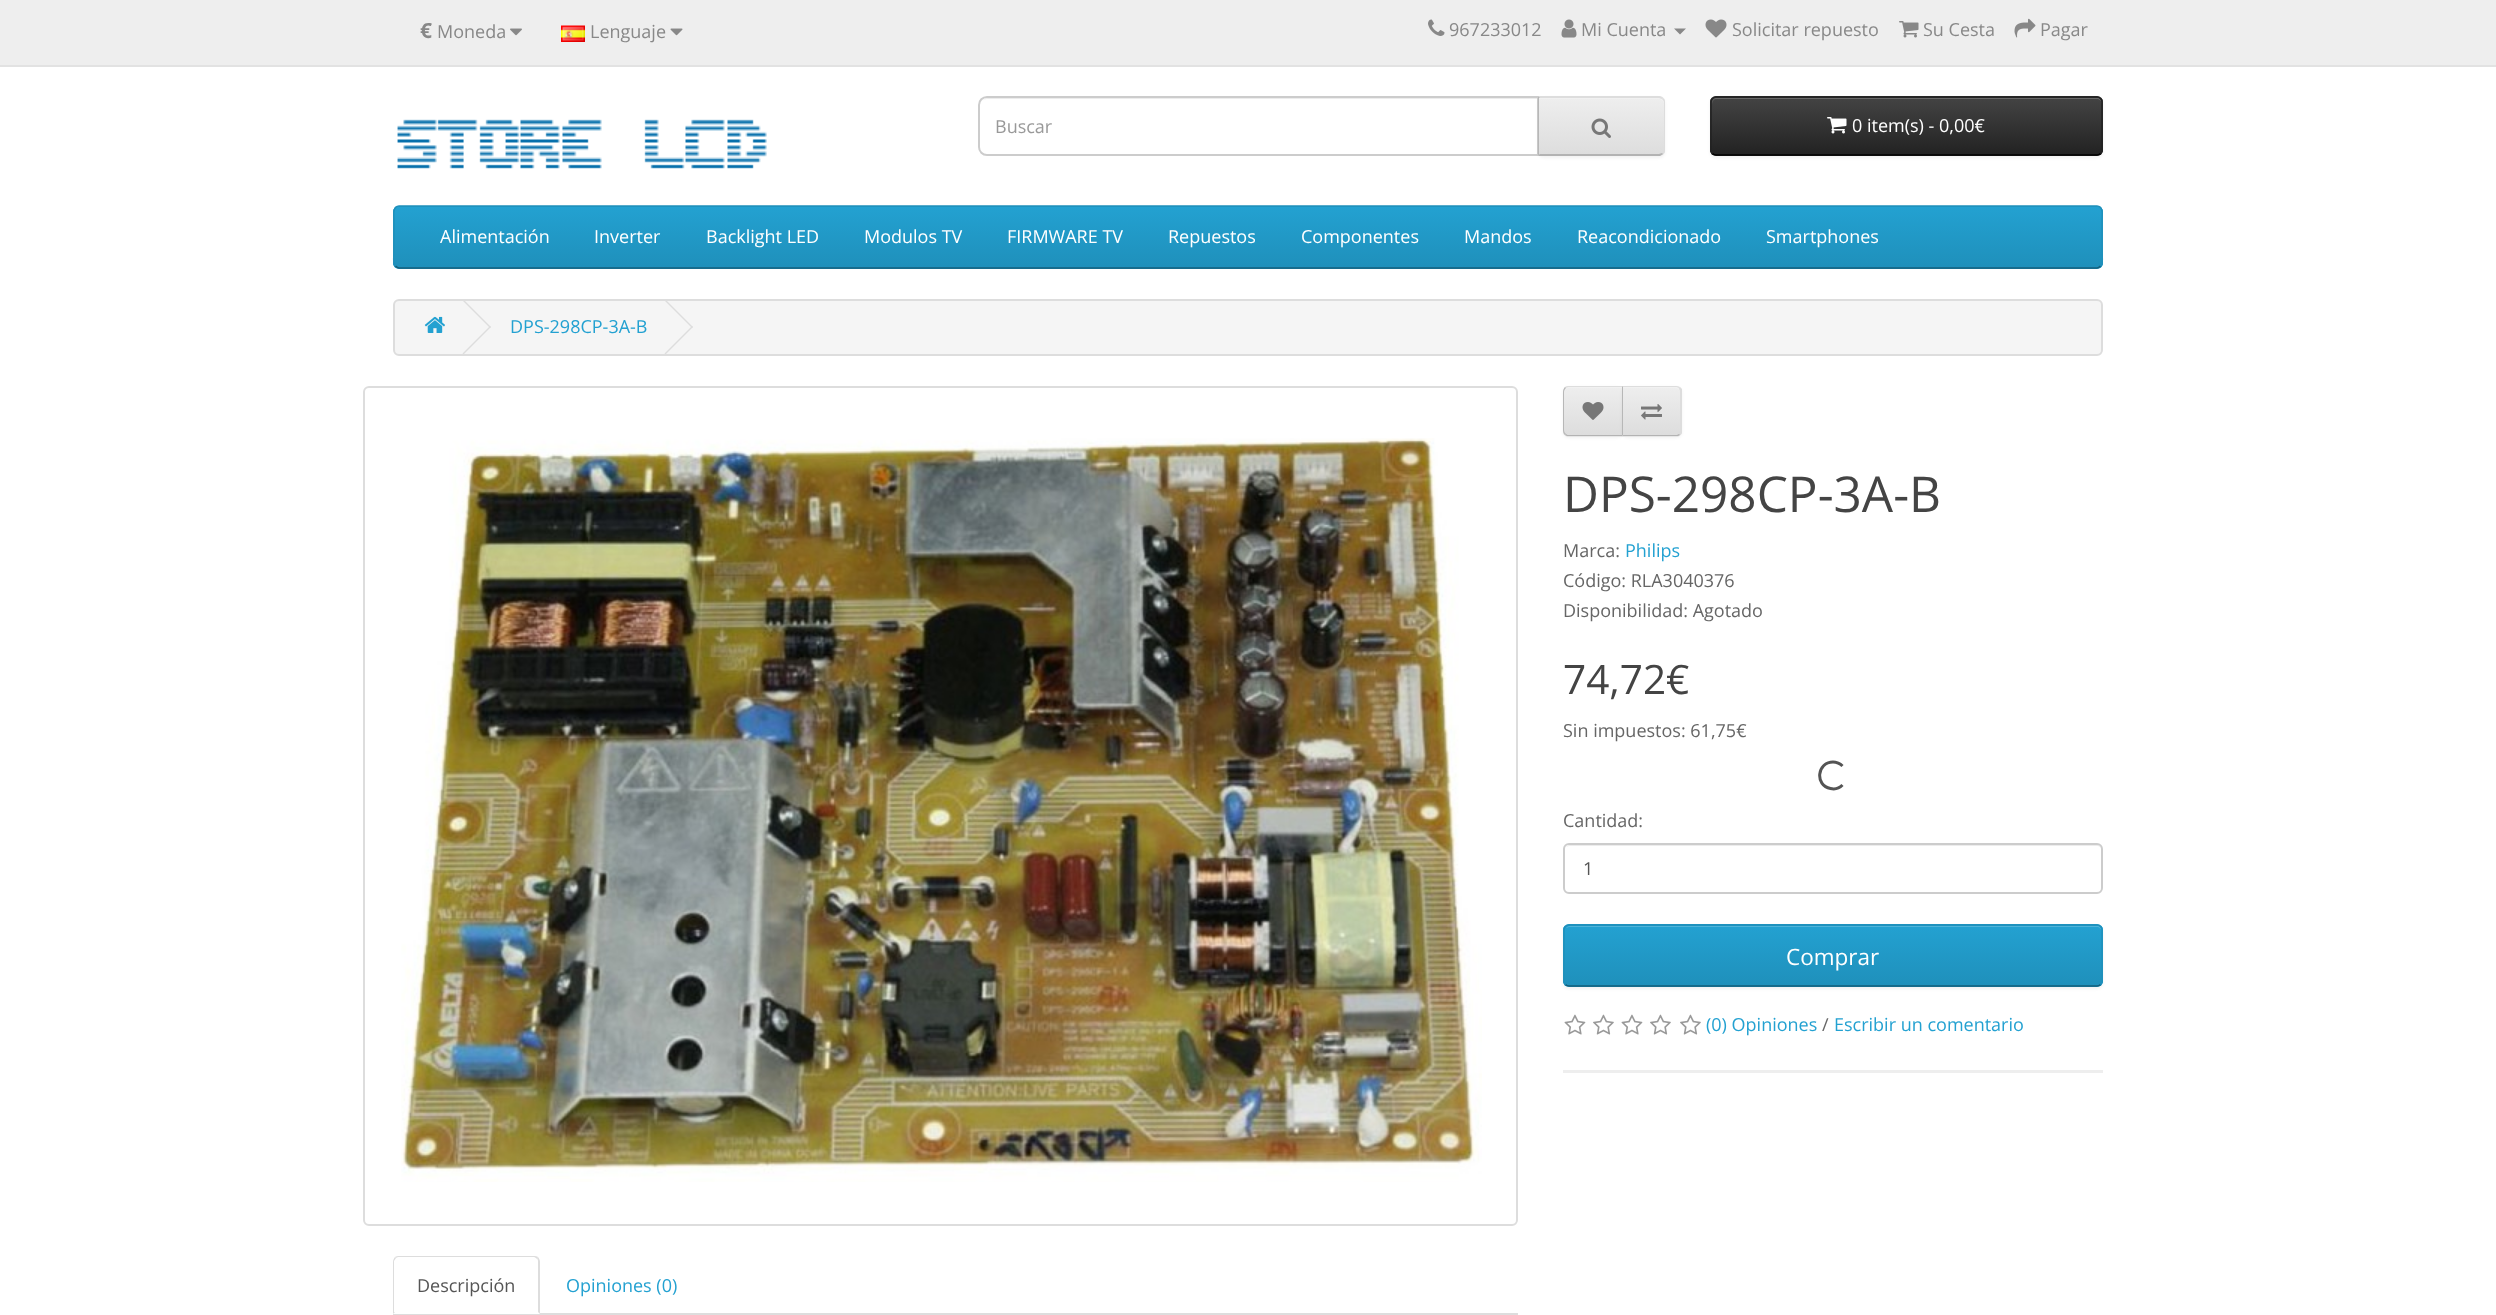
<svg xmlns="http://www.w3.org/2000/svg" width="2496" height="1315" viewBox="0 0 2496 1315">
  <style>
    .t1 { font: bold 21px Open Sans; fill: #888; }
    .t2 { font: 18px Open Sans; fill: #888; }
    .t3 { font: 18px Open Sans; fill: #999; }
    .t4 { font: 18px Open Sans; fill: #fff; }
    .t5 { font: 18px Open Sans; fill: #23a1d1; }
    .t6 { font: 49.5px Open Sans; fill: #444; }
    .t7 { font: 18px Open Sans; fill: #666; }
    .t8 { font: 40.5px Open Sans; fill: #444; }
    .t9 { font: 18px Open Sans; fill: #555; }
    .t10 { font: 22.5px Open Sans; fill: #fff; }
  </style>
  <defs>
    <clipPath id="clip1"><path d="M1538 96H1659C1662.5 96 1665 98.5 1665 102V150C1665 153.5 1662.5 156 1659 156H1538Z"/></clipPath>
    <linearGradient id="g1" gradientUnits="userSpaceOnUse" x1="1601" y1="98" x2="1601" y2="155"><stop offset="0" stop-color="#eee"/><stop offset="1" stop-color="#ddd"/></linearGradient>
    <clipPath id="clip2"><rect x="1710" y="96" width="393" height="60" rx="6"/></clipPath>
    <linearGradient id="g2" gradientUnits="userSpaceOnUse" x1="1907" y1="97" x2="1907" y2="155"><stop offset="0" stop-color="#444"/><stop offset="1" stop-color="#222"/></linearGradient>
    <clipPath id="clip3"><rect x="393" y="206" width="1710" height="63" rx="6"/></clipPath>
    <linearGradient id="g3" gradientUnits="userSpaceOnUse" x1="1248" y1="207" x2="1248" y2="267"><stop offset="0" stop-color="#23a1d1"/><stop offset="1" stop-color="#1f90bb"/></linearGradient>
    <clipPath id="clip4"><path d="M1569 386H1623V437H1569C1565.5 437 1563 434.5 1563 431V392C1563 388.5 1565.5 386 1569 386Z"/></clipPath>
    <linearGradient id="g4" gradientUnits="userSpaceOnUse" x1="1593" y1="387" x2="1593" y2="435"><stop offset="0" stop-color="#eee"/><stop offset="1" stop-color="#ddd"/></linearGradient>
    <clipPath id="clip5"><path d="M1622 386H1676C1679.5 386 1682 388.5 1682 392V431C1682 434.5 1679.5 437 1676 437H1622Z"/></clipPath>
    <linearGradient id="g5" gradientUnits="userSpaceOnUse" x1="1652" y1="387" x2="1652" y2="435"><stop offset="0" stop-color="#eee"/><stop offset="1" stop-color="#ddd"/></linearGradient>
    <clipPath id="clip6"><rect x="1563" y="924" width="540" height="63" rx="6"/></clipPath>
    <linearGradient id="g6" gradientUnits="userSpaceOnUse" x1="1833" y1="926" x2="1833" y2="986"><stop offset="0" stop-color="#23a1d1"/><stop offset="1" stop-color="#1f90bb"/></linearGradient>
  </defs>
  <rect width="100%" height="100%" fill="#fff"/>
  <rect x="0" y="0" width="2496" height="65" fill="#eee"/>
  <rect x="0" y="65" width="2496" height="2" fill="#e2e2e2"/>
  <text x="420" y="38" class="t1">€</text>
  <text x="437" y="38" class="t2">Moneda</text>
  <image x="510" y="28" width="12" height="8" href="images/1.png"/>
  <image x="561" y="25" width="24" height="17" href="images/2.png"/>
  <text x="590" y="38" class="t2">Lenguaje</text>
  <image x="670" y="28" width="13" height="8" href="images/3.png"/>
  <image x="1428" y="19" width="17" height="17" href="images/4.png"/>
  <text x="1449" y="36" class="t2">967233012</text>
  <image x="1561" y="19" width="16" height="19" href="images/5.png"/>
  <text x="1581" y="36" class="t2">Mi Cuenta</text>
  <path d="M1674 28.5H1686L1680 34.5Z" fill="#888"/>
  <image x="1705" y="19" width="22" height="19" href="images/6.png"/>
  <text x="1732" y="36" class="t2">Solicitar repuesto</text>
  <image x="1899" y="21" width="20" height="17" href="images/7.png"/>
  <text x="1923" y="36" class="t2">Su Cesta</text>
  <image x="2014" y="18" width="22" height="20" href="images/8.png"/>
  <text x="2040" y="36" class="t2">Pagar</text>
  <image x="397" y="119" width="370" height="50" href="images/9.png"/>
  <path d="M987 99H1538V98H988C984 98 980 102 980 106C980 102 983 99 987 99Z" fill="#ececec"/>
  <path d="M987 97H1538V155H987C982.5 155 979 151.5 979 147V105C979 100.5 982.5 97 987 97Z" fill="none" stroke="#ccc" stroke-width="2"/>
  <text x="995" y="133" class="t3">Buscar</text>
  <rect x="1538" y="98" width="127" height="60" rx="6" fill="#0000000d" filter="blur(1.5px)"/>
  <path d="M1538 96H1659C1662.5 96 1665 98.5 1665 102V150C1665 153.5 1662.5 156 1659 156H1538Z" fill="#e7e7e7"/>
  <g clip-path="url(#clip1)">
    <rect x="1539" y="98" width="126" height="57" fill="url(#g1)"/>
  </g>
  <path d="M1539 99H1659C1661 99 1664 101 1664 104V103C1664 100 1662 98 1659 98H1539Z" fill="#f1f1f1"/>
  <path d="M1538 96L1540 98H1659L1662 99L1663 98C1662 97 1660 96 1659 96Z" fill="#ddd"/>
  <path d="M1665 150V102C1665 100 1664 99 1663 98L1662 99C1663 100 1664 101 1664 102V150C1664 151 1663 152 1662 153L1663 154C1664 153 1665 152 1665 150Z" fill="#ddd"/>
  <path d="M1538 156H1660L1663 154L1662 153L1659 154H1540Z" fill="#b3b3b3"/>
  <path d="M1539 98H1540L1538 96V156L1540 154H1539Z" fill="#b7b7b7"/>
  <image x="1591" y="118" width="20" height="20" href="images/10.png"/>
  <rect x="1710" y="98" width="393" height="60" rx="6" fill="#0000000d" filter="blur(1.5px)"/>
  <rect x="1710" y="96" width="393" height="60" rx="6" fill="#363636"/>
  <g clip-path="url(#clip2)">
    <rect x="1710" y="98" width="393" height="57" fill="url(#g2)"/>
  </g>
  <path d="M1716 99H2097C2099 99 2102 101 2102 104V103C2102 100 2100 98 2097 98H1717C1714 98 1712 100 1712 103V104C1712 101 1714 99 1716 99Z" fill="#696969"/>
  <path d="M2100.5 153.5C2099.5 154.5 2098.5 155 2097 155H1716C1714.5 155 1713.5 154.5 1712.5 153.5" fill="none" stroke="#000" stroke-width="1.5"/>
  <path d="M1712.5 153.5C1711.5 152.5 1711 151.5 1711 150V102C1711 100.5 1711.5 99.5 1712.5 98.5C1713.5 97.5 1714.5 97 1716 97H2097C2098.5 97 2099.5 97.5 2100.5 98.5C2101.5 99.5 2102 100.5 2102 102V150C2102 151.5 2101.5 152.5 2100.5 153.5" fill="none" stroke="#222" stroke-width="1.5"/>
  <image x="1827" y="117" width="20" height="17" href="images/11.png"/>
  <text x="1852" y="132" class="t4">0 item(s) - 0,00€</text>
  <rect x="393" y="206" width="1710" height="63" rx="6" fill="#229ac8"/>
  <g clip-path="url(#clip3)">
    <rect x="393" y="207" width="1710" height="60" fill="url(#g3)"/>
  </g>
  <path d="M2100.5 266C2099.5 267 2098.5 268 2097 268H399C397.5 268 396.5 267 395.5 266" fill="none" stroke="#145e7a" stroke-width="1.5"/>
  <path d="M395.5 266C392.5 263.5 394 256.5 394 254V220C394 216 392 206.5 399 206H2097C2104 206.5 2102 216 2102 220V254C2102 256.5 2103.5 263.5 2100.5 266" fill="none" stroke="#1f90bb" stroke-width="1.5"/>
  <text x="440" y="243" class="t4">Alimentación</text>
  <text x="594" y="243" class="t4">Inverter</text>
  <text x="706" y="243" class="t4">Backlight LED</text>
  <text x="864" y="243" class="t4">Modulos TV</text>
  <text x="1007" y="243" class="t4">FIRMWARE TV</text>
  <text x="1168" y="243" class="t4">Repuestos</text>
  <text x="1301" y="243" class="t4">Componentes</text>
  <text x="1464" y="243" class="t4">Mandos</text>
  <text x="1577" y="243" class="t4">Reacondicionado</text>
  <text x="1766" y="243" class="t4">Smartphones</text>
  <rect x="394" y="300" width="1708" height="55" rx="5" fill="#f5f5f5" stroke="#ddd" stroke-width="2"/>
  <image x="424" y="316" width="21" height="17" href="images/12.png"/>
  <path d="M462.5 300.5L463.5 299.5L491 327L490 328Z" fill="#ddd"/>
  <path d="M462.5 353.5L490 326L491 327L463.5 354.5Z" fill="#ddd"/>
  <text x="510" y="333" class="t5">DPS-298CP-3A-B</text>
  <path d="M664.5 300.5L665.5 299.5L693 327L692 328Z" fill="#ddd"/>
  <path d="M664.5 353.5L692 326L693 327L665.5 354.5Z" fill="#ddd"/>
  <rect x="1563" y="387" width="60" height="51" rx="6" fill="#0000000d" filter="blur(1.5px)"/>
  <path d="M1569 386H1623V437H1569C1565.5 437 1563 434.5 1563 431V392C1563 388.5 1565.5 386 1569 386Z" fill="#e7e7e7"/>
  <g clip-path="url(#clip4)">
    <rect x="1563" y="387" width="59" height="48" fill="url(#g4)"/>
  </g>
  <path d="M1569 388H1622V387H1570C1568 387 1566 388 1565 390C1566 389 1568 388 1569 388Z" fill="#f1f1f1"/>
  <path d="M1569 386C1568 386 1566 386 1565 387L1566 388C1567 387 1568 387 1569 387H1622V386Z" fill="#ddd"/>
  <path d="M1622 436H1569C1568 436 1566 436 1565 435L1566 434C1567 435 1568 435 1569 435H1622Z" fill="#b3b3b3"/>
  <path d="M1563 392V430C1563 432 1564 434 1565 435L1566 434C1565 433 1564 432 1564 430V392C1564 390 1565 389 1566 388L1565 387C1564 388 1563 390 1563 392Z" fill="#b7b7b7"/>
  <image x="1582" y="402" width="22" height="18" href="images/13.png"/>
  <rect x="1622" y="387" width="60" height="51" rx="6" fill="#0000000d" filter="blur(1.5px)"/>
  <path d="M1622 386H1676C1679.5 386 1682 388.5 1682 392V431C1682 434.5 1679.5 437 1676 437H1622Z" fill="#e7e7e7"/>
  <g clip-path="url(#clip5)">
    <rect x="1623" y="387" width="59" height="48" fill="url(#g5)"/>
  </g>
  <path d="M1623 388H1676C1678 388 1680 391 1680 393V392C1680 389 1678 387 1675 387H1623Z" fill="#f1f1f1"/>
  <path d="M1622 386L1623 387H1677L1679 388L1680 387L1676 386Z" fill="#ddd"/>
  <path d="M1680 387L1682 389V433L1680 435L1679 434C1679 433 1680 432 1680 430V392C1680 390 1679 389 1679 388Z" fill="#ddd"/>
  <path d="M1680 435C1679 436 1677 436 1676 436H1622L1623 435H1677L1679 434Z" fill="#b3b3b3"/>
  <path d="M1623 387L1622 386V436L1623 435Z" fill="#b7b7b7"/>
  <image x="1641" y="404" width="21" height="16" href="images/14.png"/>
  <text x="1563" y="512" class="t6">DPS-298CP-3A-B</text>
  <text x="1563" y="557" class="t7">Marca:</text>
  <text x="1625" y="557" class="t5">Philips</text>
  <text x="1563" y="587" class="t7">Código: RLA3040376</text>
  <text x="1563" y="617" class="t7">Disponibilidad: Agotado</text>
  <text x="1563" y="694" class="t8">74,72€</text>
  <text x="1563" y="737" class="t7">Sin impuestos: 61,75€</text>
  <path d="M1842.5 785C1839.5 788 1834.5 789.5 1830.5 788.5C1814.5 785.5 1817 762 1833 762C1836.5 762 1840 763.5 1842.5 766" fill="none" stroke="#545454" stroke-width="3"/>
  <text x="1563" y="827" class="t7">Cantidad:</text>
  <path d="M1569 846H2097C2099 846 2102 848 2102 850C2102 847 2100 845 2097 845H1570C1568 845 1567 846 1566 847Z" fill="#ececec"/>
  <rect x="1564" y="844" width="538" height="49" rx="5" fill="none" stroke="#ccc" stroke-width="2"/>
  <text x="1583" y="875" class="t9">1</text>
  <rect x="1563" y="926" width="540" height="63" rx="6" fill="#0000000d" filter="blur(1.5px)"/>
  <rect x="1563" y="924" width="540" height="63" rx="6" fill="#229ac8"/>
  <g clip-path="url(#clip6)">
    <rect x="1563" y="926" width="540" height="60" fill="url(#g6)"/>
  </g>
  <path d="M1569 927H2097C2099 927 2102 929 2102 932V931C2102 928 2100 926 2097 926H1570C1568 926 1567 927 1566 928Z" fill="#4fb4da"/>
  <path d="M2100.5 984.5C2099.5 985.5 2098.5 986 2097 986H1569C1567.5 986 1566.5 985.5 1565.5 984.5" fill="none" stroke="#145e7a" stroke-width="1.5"/>
  <path d="M1565.5 984.5C1564.5 983.5 1564 982.5 1564 981V930C1564 928.5 1564.5 927.5 1565.5 926.5C1566.5 925.5 1567.5 925 1569 925H2097C2098.5 925 2099.5 925.5 2100.5 926.5C2101.5 927.5 2102 928.5 2102 930V981C2102 982.5 2101.5 983.5 2100.5 984.5" fill="none" stroke="#1f90bb" stroke-width="1.5"/>
  <text x="1786" y="965" class="t10">Comprar</text>
  <image x="1564" y="1014" width="22" height="21" href="images/15.png"/>
  <image x="1593" y="1014" width="21" height="21" href="images/16.png"/>
  <image x="1621" y="1014" width="22" height="21" href="images/15.png"/>
  <image x="1650" y="1014" width="21" height="21" href="images/16.png"/>
  <image x="1680" y="1014" width="21" height="21" href="images/16.png"/>
  <text x="1706" y="1031" class="t5">(0) Opiniones</text>
  <text x="1822" y="1031" class="t7">/</text>
  <text x="1834" y="1031" class="t5">Escribir un comentario</text>
  <rect x="1563" y="1070" width="540" height="3" fill="#eee"/>
  <rect x="364" y="387" width="1153" height="838" rx="5" fill="none" stroke="#ddd" stroke-width="2"/>
  <image x="401" y="438" width="1081" height="744" href="images/17.png"/>
  <rect x="393" y="1313" width="1125" height="2" fill="#ddd"/>
  <path d="M399 1256H534C537.5 1256 540 1258.5 540 1262V1314H393V1262C393 1258.5 395.5 1256 399 1256Z" fill="#fff"/>
  <path d="M399 1256C398 1256 396 1256 395 1257L396 1258C397 1257 398 1257 399 1257H534C535 1257 536 1258 537 1259L538 1257C537 1256 535 1256 534 1256Z" fill="#ddd"/>
  <path d="M538 1257C539 1258 540 1260 540 1262V1314L538 1312V1262C538 1261 538 1259 537 1259Z" fill="#ddd"/>
  <path d="M393 1314L395 1312H394V1261L396 1258L395 1257C394 1258 393 1260 393 1262Z" fill="#ddd"/>
  <text x="417" y="1292" class="t9">Descripción</text>
  <text x="566" y="1292" class="t5">Opiniones (0)</text>
</svg>
